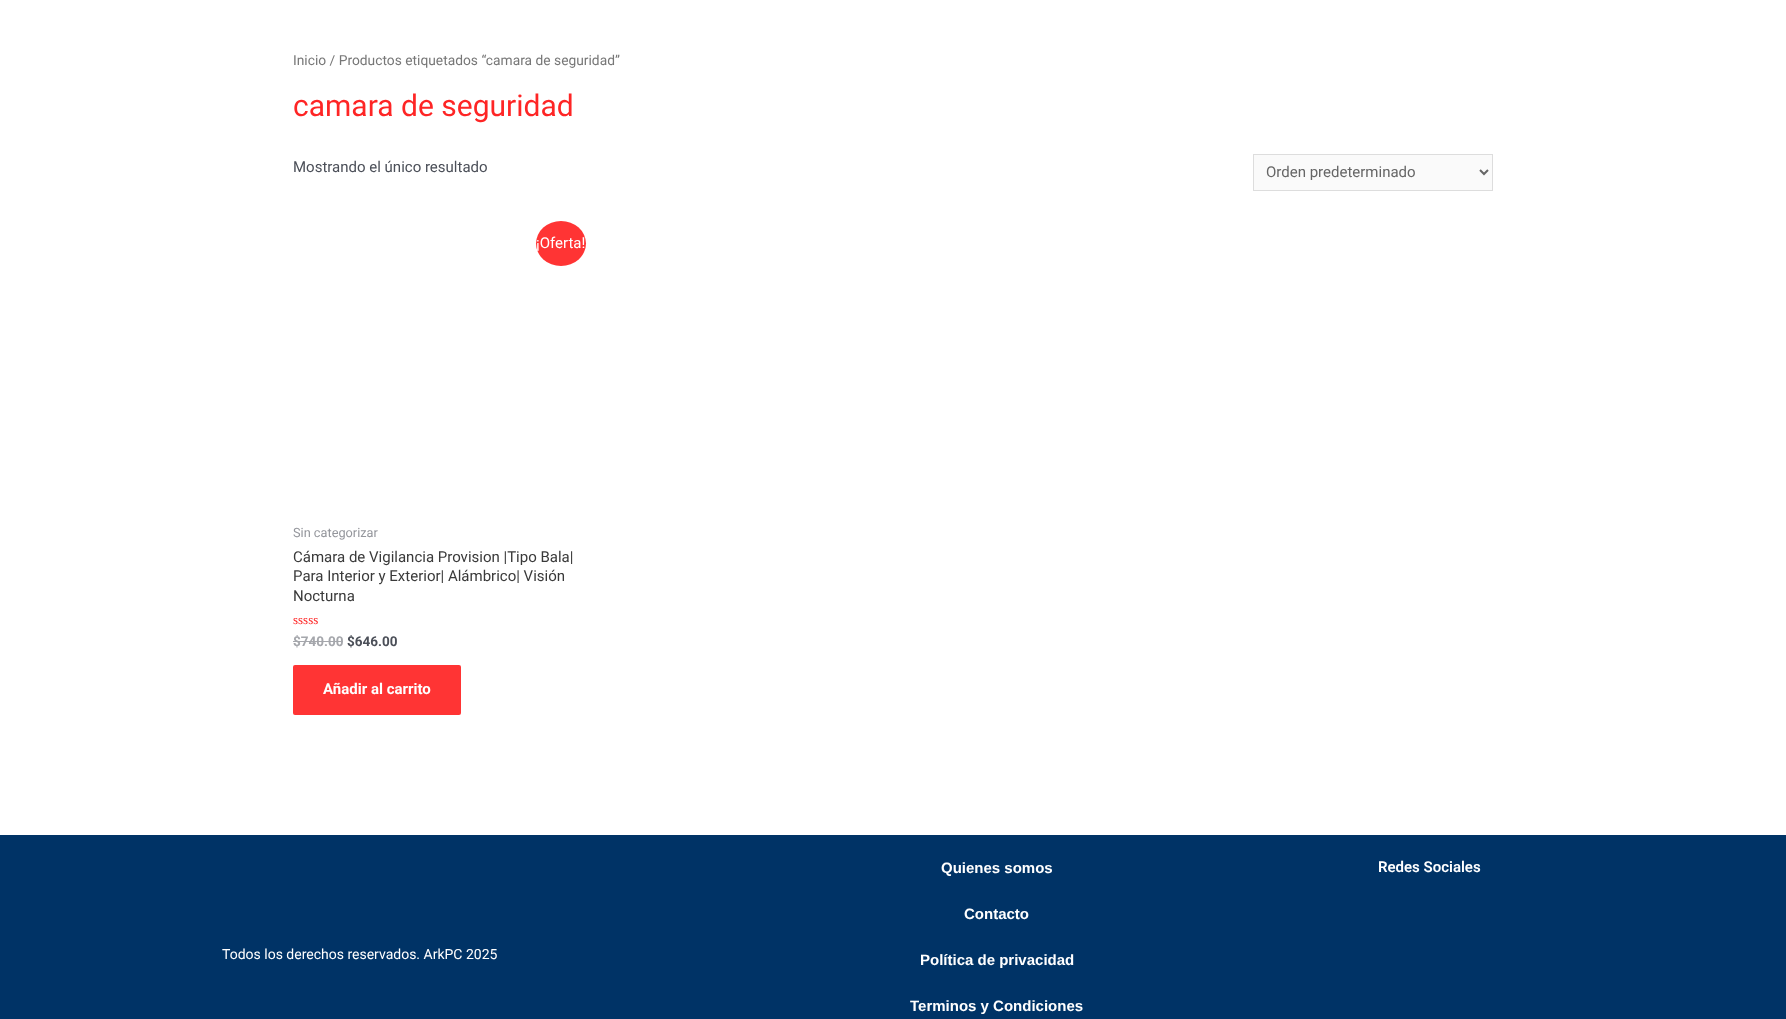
<svg xmlns="http://www.w3.org/2000/svg" width="1786" height="1019" viewBox="0 0 1786 1019">
  <style>
    .t1 { font: 13.8px Roboto; fill: #777; }
    .t2 { font: 30px Roboto; fill: #fe2525; }
    .t3 { font: 15px Roboto; fill: #4b4f58; }
    .t4 { font: 15px Roboto; fill: #666; }
    .t5 { font: 15px Roboto; fill: #fff; }
    .t6 { font: 12.75px Roboto; fill: #93959b; }
    .t7 { font: 15px Roboto; fill: #3a3a3a; }
    .t8 { font: 13px Liberation Serif; fill: #fe2525; }
    .t9 { font: bold 13.5px Roboto; fill: #a5a7ac; }
    .t10 { font: bold 13.5px Roboto; fill: #4b4f58; }
    .t11 { font: bold 15px Roboto; fill: #fff; }
    .t12 { font: 14px Roboto; fill: #fff; }
    .t13 { font: bold 15px Liberation Sans; fill: #fff; }
    .t14 { font: 600 15px Roboto; fill: #fff; }
  </style>
  <rect width="100%" height="100%" fill="#fff"/>
  <text x="293" y="65" class="t1">Inicio / Productos etiquetados “camara de seguridad”</text>
  <text x="293" y="116" class="t2">camara de seguridad</text>
  <text x="293" y="172" class="t3">Mostrando el único resultado</text>
  <rect x="1253.5" y="154.5" width="239" height="36" fill="#fafafa" stroke="#ddd"/>
  <path d="M1480 170L1484 174L1488 170" fill="none" stroke="#666" stroke-width="2"/>
  <text x="1266" y="177" class="t4">Orden predeterminado</text>
  <ellipse cx="561" cy="243.5" rx="25" ry="22.5" fill="#ff3434"/>
  <text x="536" y="248" class="t5">¡Oferta!</text>
  <text x="293" y="537" class="t6">Sin categorizar</text>
  <text x="293" y="562" class="t7">Cámara de Vigilancia Provision |Tipo Bala|</text>
  <text x="293" y="581" class="t7">Para Interior y Exterior| Alámbrico| Visión</text>
  <text x="293" y="601" class="t7">Nocturna</text>
  <text x="293" y="624" class="t8">sssss</text>
  <text x="293" y="646" class="t9">$740.00</text>
  <rect x="293" y="641" width="50" height="1" fill="#a5a7ac"/>
  <text x="347" y="646" class="t10">$646.00</text>
  <rect x="293" y="665" width="168" height="50" rx="2" fill="#ff3434"/>
  <text x="323" y="694" class="t11">Añadir al carrito</text>
  <rect x="0" y="835" width="1786" height="184" fill="#036"/>
  <text x="222" y="959" class="t12">Todos los derechos reservados. ArkPC 2025</text>
  <text x="941" y="873" class="t13">Quienes somos</text>
  <text x="964" y="919" class="t13">Contacto</text>
  <text x="920" y="965" class="t13">Política de privacidad</text>
  <text x="910" y="1011" class="t13">Terminos y Condiciones</text>
  <text x="1378" y="872" class="t14">Redes Sociales</text>
</svg>
